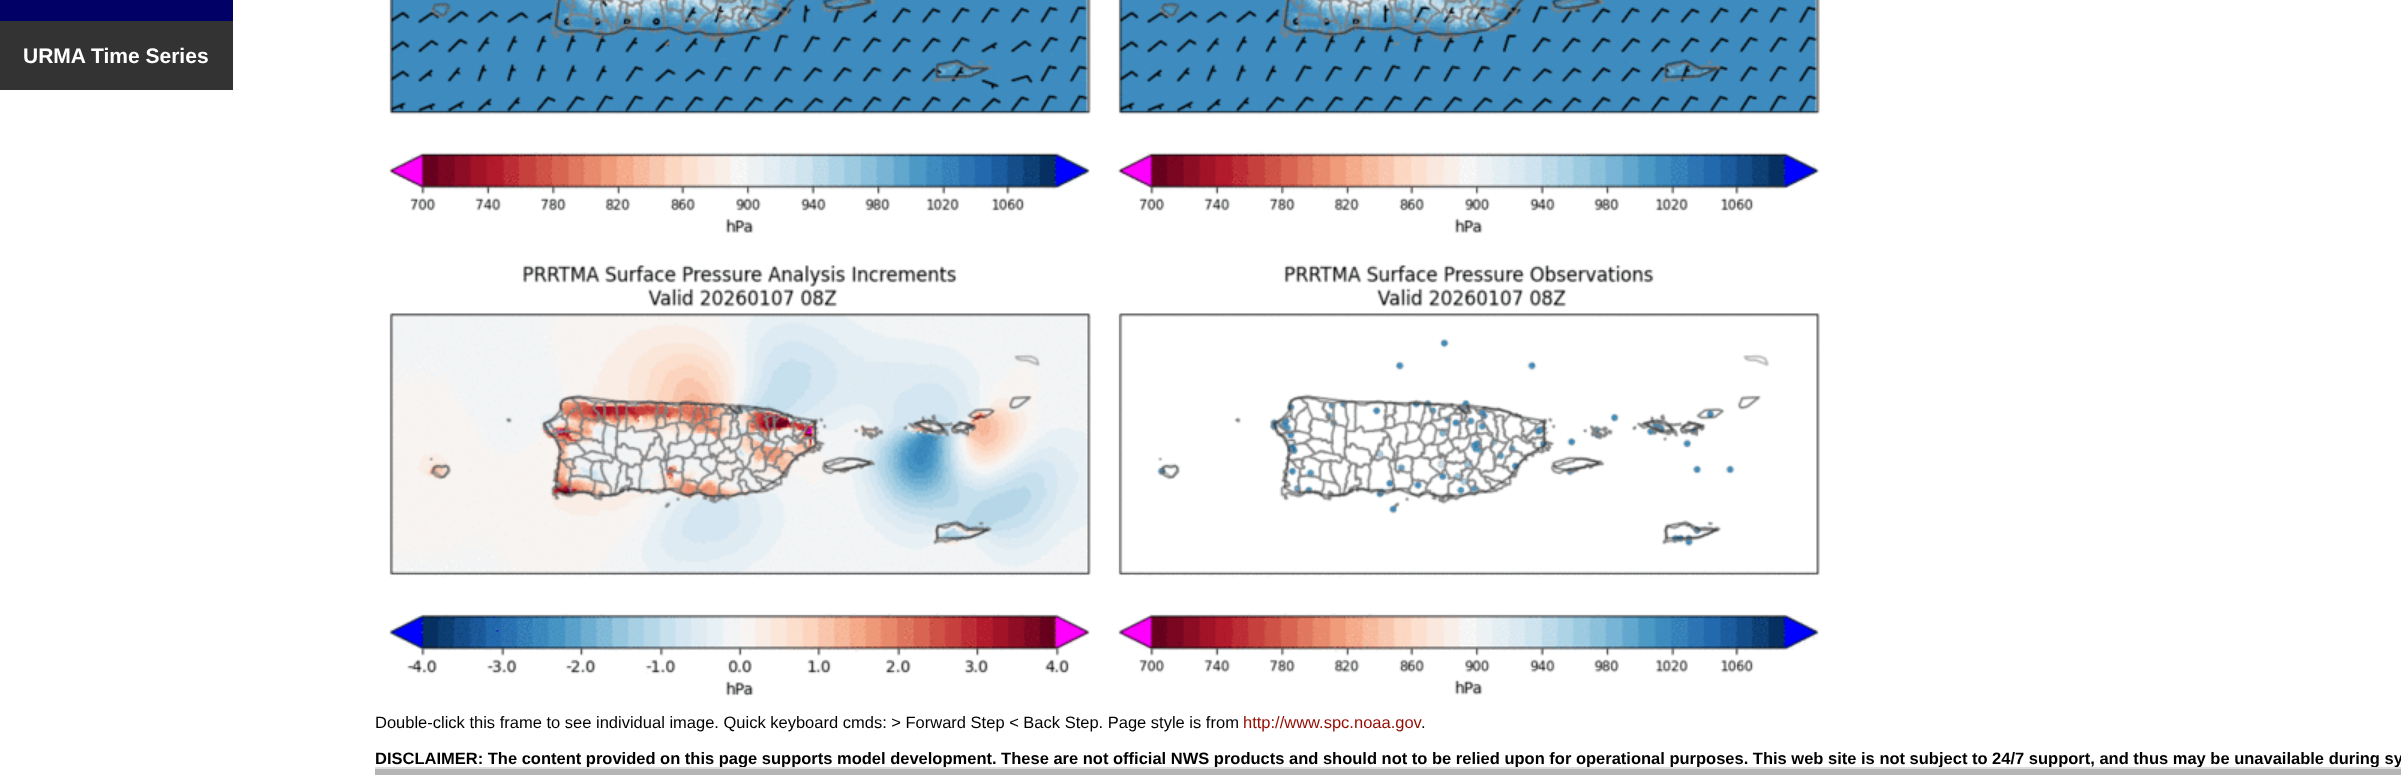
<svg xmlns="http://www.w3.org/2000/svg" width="2401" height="775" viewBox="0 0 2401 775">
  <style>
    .t1 { font: bold 21px Liberation Sans; fill: #fff; }
    .t2 { font: 16.5px Liberation Sans; fill: #000; }
    .t3 { font: 16.5px Liberation Sans; fill: #930b01; }
    .t4 { font: bold 16.5px Liberation Sans; fill: #000; }
  </style>
  <defs>
    <clipPath id="clip1"><rect x="375" y="0" width="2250" height="767"/></clipPath>
  </defs>
  <rect width="100%" height="100%" fill="#fff"/>
  <rect x="0" y="0" width="233" height="21" fill="#006"/>
  <rect x="0" y="21" width="233" height="69" fill="#333"/>
  <text x="23" y="63" class="t1">URMA Time Series</text>
  <rect x="375" y="769" width="2026" height="6" fill="#b5b5b5"/>
  <rect x="375" y="767" width="2026" height="2" fill="#ddd"/>
  <image x="389" y="0" width="1432" height="697" href="images/1.png"/>
  <text x="375" y="728" class="t2">Double-click this frame to see individual image. Quick keyboard cmds: &gt; Forward Step &lt; Back Step. Page style is from</text>
  <text x="1243" y="728" class="t3">http://www.spc.noaa.gov</text>
  <text x="1421" y="728" class="t2">.</text>
  <g clip-path="url(#clip1)">
    <text x="375" y="764" class="t4">DISCLAIMER: The content provided on this page supports model development. These are not official NWS products and should not to be relied upon for operational purposes. This web site is not subject to 24/7 support, and thus may be unavailable during sy</text>
  </g>
</svg>
